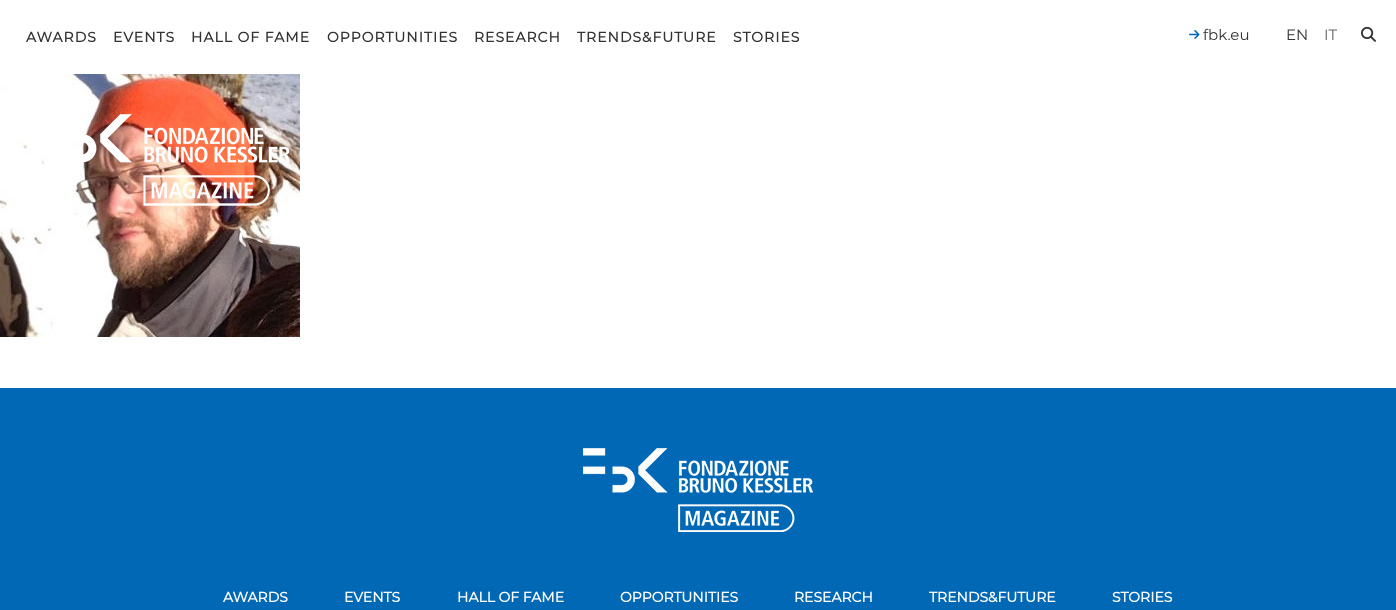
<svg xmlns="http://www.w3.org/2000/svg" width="1396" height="610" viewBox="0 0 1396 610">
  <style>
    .t1 { font: bold 14px Montserrat; letter-spacing: 1px; fill: #333; }
    .t2 { font: 100 15px Montserrat; fill: #333; }
    .t3 { font: 100 15px Montserrat; fill: #666; }
    .t4 { font: bold 14px Montserrat; fill: #fff; }
  </style>
  <rect width="100%" height="100%" fill="#fff"/>
  <text x="26" y="42" class="t1">AWARDS</text>
  <text x="113" y="42" class="t1">EVENTS</text>
  <text x="191" y="42" class="t1">HALL OF FAME</text>
  <text x="327" y="42" class="t1">OPPORTUNITIES</text>
  <text x="474" y="42" class="t1">RESEARCH</text>
  <text x="577" y="42" class="t1">TRENDS&amp;FUTURE</text>
  <text x="733" y="42" class="t1">STORIES</text>
  <image x="1189" y="30" width="11" height="9" href="images/1.png"/>
  <text x="1203" y="40" class="t2">fbk.eu</text>
  <text x="1286" y="40" class="t2">EN</text>
  <text x="1324" y="40" class="t3">IT</text>
  <image x="1361" y="26" width="15" height="16" href="images/2.png"/>
  <image x="0" y="74" width="300" height="263" href="images/4.png"/>
  <image x="80" y="114" width="210" height="92" href="images/3.png"/>
  <rect x="0" y="388" width="1396" height="222" fill="#0068b4"/>
  <image x="583" y="448" width="230" height="84" href="images/5.png"/>
  <text x="223" y="602" class="t4">AWARDS</text>
  <text x="344" y="602" class="t4">EVENTS</text>
  <text x="457" y="602" class="t4">HALL OF FAME</text>
  <text x="620" y="602" class="t4">OPPORTUNITIES</text>
  <text x="794" y="602" class="t4">RESEARCH</text>
  <text x="929" y="602" class="t4">TRENDS&amp;FUTURE</text>
  <text x="1112" y="602" class="t4">STORIES</text>
</svg>
